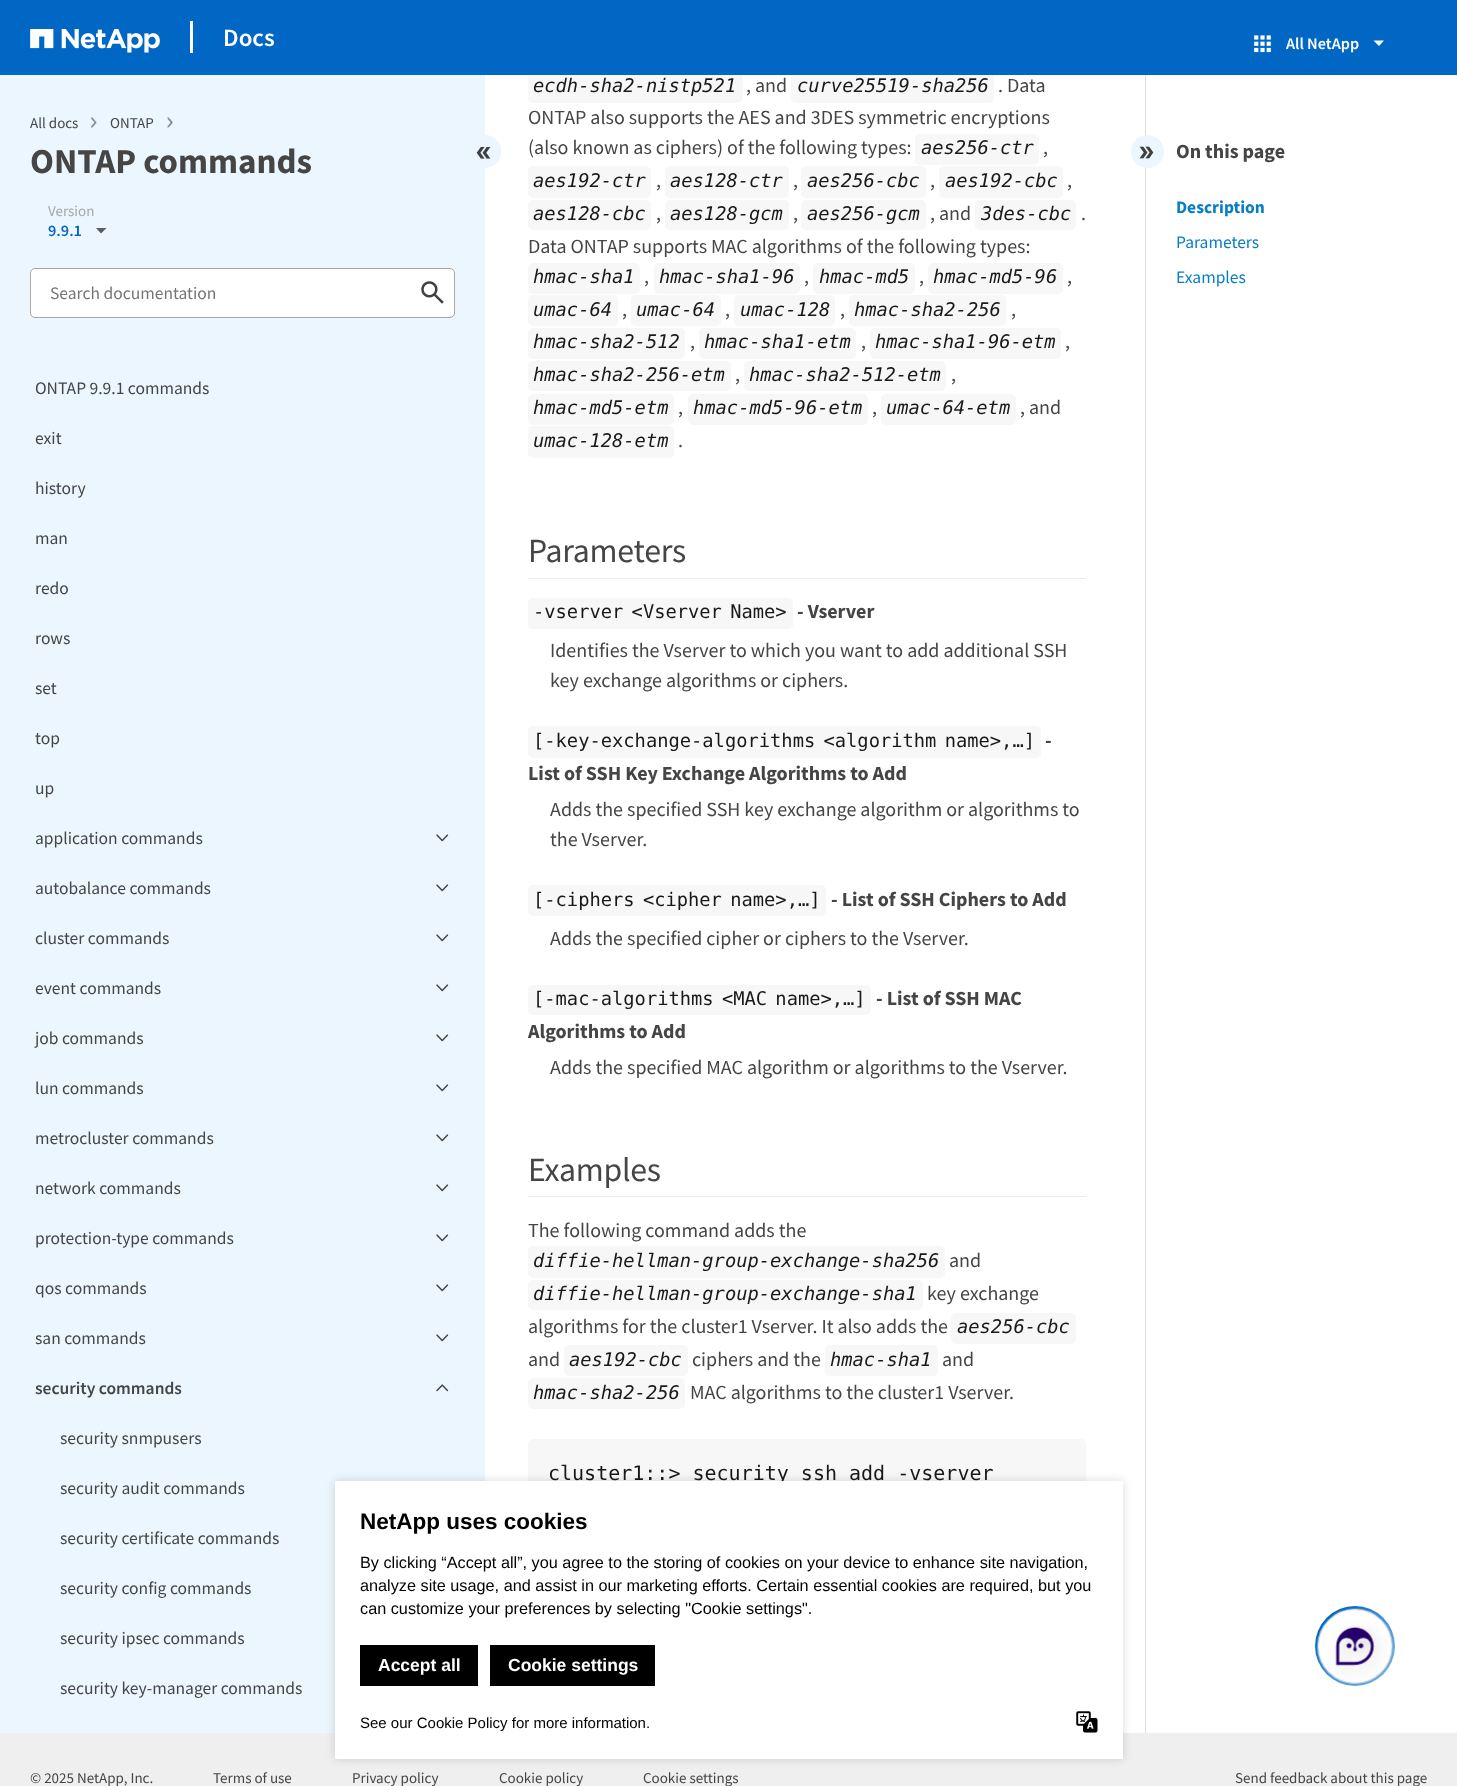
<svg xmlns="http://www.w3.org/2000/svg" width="1457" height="1786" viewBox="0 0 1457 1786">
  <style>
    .t1 { font: 600 25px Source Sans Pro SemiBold; fill: #fff; }
    .t2 { font: 600 16.25px Source Sans Pro SemiBold; fill: #fff; }
    .t3 { font: 15px Source Sans Pro; fill: #454545; }
    .t4 { font: bold 35px Source Sans Pro; fill: #454545; }
    .t5 { font: 15px Source Sans Pro; fill: #a7a7a7; }
    .t6 { font: 600 16.25px Source Sans Pro SemiBold; fill: #0067c5; }
    .t7 { font: 17.5px Source Sans Pro; fill: #757575; }
    .t8 { font: 17.5px Source Sans Pro; fill: #454545; }
    .t9 { font: 600 17.5px Source Sans Pro SemiBold; fill: #454545; }
    .t10 { font: italic 18.75px DejaVu Sans Mono; fill: #191919; }
    .t11 { font: 20px Source Sans Pro; fill: #454545; }
    .t12 { font: 33.75px Source Sans Pro; letter-spacing: -0.25px; fill: #454545; }
    .t13 { font: 18.75px DejaVu Sans Mono; fill: #191919; }
    .t14 { font: bold 20px Source Sans Pro; fill: #454545; }
    .t15 { font: 20px DejaVu Sans Mono; fill: #191919; }
    .t16 { font: bold 17.5px Source Sans Pro; fill: #067ec5; }
    .t17 { font: 17.5px Source Sans Pro; fill: #067ec5; }
    .t18 { font: bold 22.5px Liberation Sans; fill: #000; }
    .t19 { font: 16.25px Liberation Sans; fill: #000; }
    .t20 { font: bold 17.5px Liberation Sans; fill: #fff; }
    .t21 { font: 15px Liberation Sans; fill: #000; }
  </style>
  <defs>
    <linearGradient id="g1" gradientUnits="userSpaceOnUse" x1="1315" y1="1606" x2="1395" y2="1686"><stop offset="0.18" stop-color="#0067c5"/><stop offset="0.89" stop-color="#7ac3fa"/></linearGradient>
  </defs>
  <rect width="100%" height="100%" fill="#fff"/>
  <rect x="528" y="71" width="215" height="32" rx="5" fill="#f7f7f8"/>
  <rect x="791" y="71" width="203" height="32" rx="5" fill="#f7f7f8"/>
  <rect x="0" y="0" width="1457" height="75" fill="#0067c5"/>
  <image x="30" y="29" width="130" height="24" href="images/1.png"/>
  <rect x="190" y="21" width="3" height="32" fill="#fff"/>
  <text x="223" y="46" class="t1">Docs</text>
  <image x="1254" y="35" width="17" height="18" href="images/2.png"/>
  <text x="1286" y="49" class="t2">All NetApp</text>
  <path d="M1379 46L1373.5 40.5H1384Z" fill="#fdfdfd"/>
  <rect x="0" y="75" width="485" height="1658" fill="#ecf6ff"/>
  <text x="30" y="128" class="t3">All docs</text>
  <image x="91" y="117" width="6" height="11" href="images/3.png"/>
  <text x="110" y="128" class="t3">ONTAP</text>
  <image x="167" y="117" width="6" height="11" href="images/4.png"/>
  <text x="30" y="173" class="t4">ONTAP commands</text>
  <rect x="469" y="135" width="32" height="33" rx="16" fill="#ecf6ff"/>
  <image x="476" y="146" width="15" height="13" href="images/5.png"/>
  <text x="48" y="216" class="t5">Version</text>
  <text x="48" y="236" class="t6">9.9.1</text>
  <path d="M101 233.5L96 228H106.5Z" fill="#5e5e5e"/>
  <rect x="30.5" y="268.5" width="424" height="49" rx="4.5" fill="#fff" stroke="#a7a7a7"/>
  <text x="50" y="299" class="t7">Search documentation</text>
  <image x="421" y="281" width="23" height="23" href="images/6.png"/>
  <text x="35" y="394" class="t8">ONTAP 9.9.1 commands</text>
  <text x="35" y="444" class="t8">exit</text>
  <text x="35" y="494" class="t8">history</text>
  <text x="35" y="544" class="t8">man</text>
  <text x="35" y="594" class="t8">redo</text>
  <text x="35" y="644" class="t8">rows</text>
  <text x="35" y="694" class="t8">set</text>
  <text x="35" y="744" class="t8">top</text>
  <text x="35" y="794" class="t8">up</text>
  <text x="35" y="844" class="t8">application commands</text>
  <image x="436" y="834" width="13" height="8" href="images/7.png"/>
  <text x="35" y="894" class="t8">autobalance commands</text>
  <image x="436" y="884" width="13" height="8" href="images/7.png"/>
  <text x="35" y="944" class="t8">cluster commands</text>
  <image x="436" y="934" width="13" height="8" href="images/7.png"/>
  <text x="35" y="994" class="t8">event commands</text>
  <image x="436" y="984" width="13" height="8" href="images/7.png"/>
  <text x="35" y="1044" class="t8">job commands</text>
  <image x="436" y="1034" width="13" height="8" href="images/7.png"/>
  <text x="35" y="1094" class="t8">lun commands</text>
  <image x="436" y="1084" width="13" height="8" href="images/7.png"/>
  <text x="35" y="1144" class="t8">metrocluster commands</text>
  <image x="436" y="1134" width="13" height="8" href="images/7.png"/>
  <text x="35" y="1194" class="t8">network commands</text>
  <image x="436" y="1184" width="13" height="8" href="images/7.png"/>
  <text x="35" y="1244" class="t8">protection-type commands</text>
  <image x="436" y="1234" width="13" height="8" href="images/7.png"/>
  <text x="35" y="1294" class="t8">qos commands</text>
  <image x="436" y="1284" width="13" height="8" href="images/7.png"/>
  <text x="35" y="1344" class="t8">san commands</text>
  <image x="436" y="1334" width="13" height="8" href="images/7.png"/>
  <text x="35" y="1394" class="t9">security commands</text>
  <image x="436" y="1384" width="13" height="8" href="images/8.png"/>
  <text x="60" y="1444" class="t8">security snmpusers</text>
  <text x="60" y="1494" class="t8">security audit commands</text>
  <text x="60" y="1544" class="t8">security certificate commands</text>
  <text x="60" y="1594" class="t8">security config commands</text>
  <text x="60" y="1644" class="t8">security ipsec commands</text>
  <text x="60" y="1694" class="t8">security key-manager commands</text>
  <text x="533" y="92" class="t10">ecdh-sha2-nistp521</text>
  <text x="746" y="92" class="t11">, and</text>
  <text x="797" y="92" class="t10">curve25519-sha256</text>
  <text x="998" y="92" class="t11">. Data</text>
  <text x="528" y="124" class="t11">ONTAP also supports the AES and 3DES symmetric encryptions</text>
  <text x="528" y="154" class="t11">(also known as ciphers) of the following types:</text>
  <rect x="915" y="134" width="124" height="31" rx="5" fill="#f7f7f8"/>
  <text x="921" y="154" class="t10">aes256-ctr</text>
  <text x="1043" y="154" class="t11">,</text>
  <rect x="528" y="166" width="123" height="32" rx="5" fill="#f7f7f8"/>
  <text x="533" y="187" class="t10">aes192-ctr</text>
  <text x="656" y="187" class="t11">,</text>
  <rect x="665" y="166" width="124" height="32" rx="5" fill="#f7f7f8"/>
  <text x="670" y="187" class="t10">aes128-ctr</text>
  <text x="793" y="187" class="t11">,</text>
  <rect x="801" y="166" width="125" height="32" rx="5" fill="#f7f7f8"/>
  <text x="807" y="187" class="t10">aes256-cbc</text>
  <text x="930" y="187" class="t11">,</text>
  <rect x="939" y="166" width="124" height="32" rx="5" fill="#f7f7f8"/>
  <text x="945" y="187" class="t10">aes192-cbc</text>
  <text x="1067" y="187" class="t11">,</text>
  <rect x="528" y="200" width="123" height="30" rx="5" fill="#f7f7f8"/>
  <text x="533" y="220" class="t10">aes128-cbc</text>
  <text x="656" y="220" class="t11">,</text>
  <rect x="665" y="200" width="124" height="30" rx="5" fill="#f7f7f8"/>
  <text x="670" y="220" class="t10">aes128-gcm</text>
  <text x="793" y="220" class="t11">,</text>
  <rect x="801" y="200" width="125" height="30" rx="5" fill="#f7f7f8"/>
  <text x="807" y="220" class="t10">aes256-gcm</text>
  <text x="930" y="220" class="t11">, and</text>
  <rect x="975" y="200" width="101" height="30" rx="5" fill="#f7f7f8"/>
  <text x="981" y="220" class="t10">3des-cbc</text>
  <text x="1081" y="220" class="t11">.</text>
  <text x="528" y="253" class="t11">Data ONTAP supports MAC algorithms of the following types:</text>
  <rect x="528" y="263" width="112" height="31" rx="5" fill="#f7f7f8"/>
  <text x="533" y="283" class="t10">hmac-sha1</text>
  <text x="644" y="283" class="t11">,</text>
  <rect x="654" y="263" width="146" height="31" rx="5" fill="#f7f7f8"/>
  <text x="659" y="283" class="t10">hmac-sha1-96</text>
  <text x="804" y="283" class="t11">,</text>
  <rect x="813" y="263" width="102" height="31" rx="5" fill="#f7f7f8"/>
  <text x="819" y="283" class="t10">hmac-md5</text>
  <text x="919" y="283" class="t11">,</text>
  <rect x="928" y="263" width="135" height="31" rx="5" fill="#f7f7f8"/>
  <text x="933" y="283" class="t10">hmac-md5-96</text>
  <text x="1067" y="283" class="t11">,</text>
  <rect x="528" y="295" width="90" height="31" rx="5" fill="#f7f7f8"/>
  <text x="533" y="316" class="t10">umac-64</text>
  <text x="622" y="316" class="t11">,</text>
  <rect x="631" y="295" width="90" height="31" rx="5" fill="#f7f7f8"/>
  <text x="636" y="316" class="t10">umac-64</text>
  <text x="725" y="316" class="t11">,</text>
  <rect x="734" y="295" width="101" height="31" rx="5" fill="#f7f7f8"/>
  <text x="740" y="316" class="t10">umac-128</text>
  <text x="840" y="316" class="t11">,</text>
  <rect x="849" y="295" width="157" height="31" rx="5" fill="#f7f7f8"/>
  <text x="854" y="316" class="t10">hmac-sha2-256</text>
  <text x="1011" y="316" class="t11">,</text>
  <rect x="528" y="328" width="157" height="31" rx="5" fill="#f7f7f8"/>
  <text x="533" y="348" class="t10">hmac-sha2-512</text>
  <text x="690" y="348" class="t11">,</text>
  <rect x="699" y="328" width="157" height="31" rx="5" fill="#f7f7f8"/>
  <text x="704" y="348" class="t10">hmac-sha1-etm</text>
  <text x="861" y="348" class="t11">,</text>
  <rect x="870" y="328" width="191" height="31" rx="5" fill="#f7f7f8"/>
  <text x="875" y="348" class="t10">hmac-sha1-96-etm</text>
  <text x="1065" y="348" class="t11">,</text>
  <rect x="528" y="361" width="203" height="30" rx="5" fill="#f7f7f8"/>
  <text x="533" y="381" class="t10">hmac-sha2-256-etm</text>
  <text x="735" y="381" class="t11">,</text>
  <rect x="744" y="361" width="202" height="30" rx="5" fill="#f7f7f8"/>
  <text x="749" y="381" class="t10">hmac-sha2-512-etm</text>
  <text x="951" y="381" class="t11">,</text>
  <rect x="528" y="394" width="146" height="31" rx="5" fill="#f7f7f8"/>
  <text x="533" y="414" class="t10">hmac-md5-etm</text>
  <text x="678" y="414" class="t11">,</text>
  <rect x="688" y="394" width="180" height="31" rx="5" fill="#f7f7f8"/>
  <text x="693" y="414" class="t10">hmac-md5-96-etm</text>
  <text x="872" y="414" class="t11">,</text>
  <rect x="881" y="394" width="135" height="31" rx="5" fill="#f7f7f8"/>
  <text x="886" y="414" class="t10">umac-64-etm</text>
  <text x="1020" y="414" class="t11">, and</text>
  <rect x="528" y="426" width="146" height="32" rx="5" fill="#f7f7f8"/>
  <text x="533" y="447" class="t10">umac-128-etm</text>
  <text x="678" y="447" class="t11">.</text>
  <rect x="528" y="578" width="558" height="1" fill="#eaecef"/>
  <text x="528" y="562" class="t12">Parameters</text>
  <rect x="528" y="598" width="265" height="31" rx="5" fill="#f7f7f8"/>
  <text x="533" y="618" word-spacing="-3" class="t13">-vserver &lt;Vserver Name&gt;</text>
  <text x="797" y="618" class="t14">- Vserver</text>
  <text x="550" y="657" class="t11">Identifies the Vserver to which you want to add additional SSH</text>
  <text x="550" y="687" class="t11">key exchange algorithms or ciphers.</text>
  <rect x="528" y="726" width="513" height="32" rx="5" fill="#f7f7f8"/>
  <text x="533" y="747" word-spacing="-3" class="t13">[-key-exchange-algorithms &lt;algorithm name&gt;,…]</text>
  <text x="1045" y="747" class="t14">-</text>
  <text x="528" y="780" class="t14">List of SSH Key Exchange Algorithms to Add</text>
  <text x="550" y="816" class="t11">Adds the specified SSH key exchange algorithm or algorithms to</text>
  <text x="550" y="846" class="t11">the Vserver.</text>
  <rect x="528" y="885" width="298" height="31" rx="5" fill="#f7f7f8"/>
  <text x="533" y="906" word-spacing="-3" class="t13">[-ciphers &lt;cipher name&gt;,…]</text>
  <text x="831" y="906" class="t14">- List of SSH Ciphers to Add</text>
  <text x="550" y="945" class="t11">Adds the specified cipher or ciphers to the Vserver.</text>
  <rect x="528" y="985" width="343" height="30" rx="5" fill="#f7f7f8"/>
  <text x="533" y="1005" word-spacing="-3" class="t13">[-mac-algorithms &lt;MAC name&gt;,…]</text>
  <text x="876" y="1005" class="t14">- List of SSH MAC</text>
  <text x="528" y="1038" class="t14">Algorithms to Add</text>
  <text x="550" y="1074" class="t11">Adds the specified MAC algorithm or algorithms to the Vserver.</text>
  <rect x="528" y="1196" width="558" height="1" fill="#eaecef"/>
  <text x="528" y="1181" class="t12">Examples</text>
  <text x="528" y="1237" class="t11">The following command adds the</text>
  <rect x="528" y="1246" width="417" height="32" rx="5" fill="#f7f7f8"/>
  <text x="533" y="1267" class="t10">diffie-hellman-group-exchange-sha256</text>
  <text x="949" y="1267" class="t11">and</text>
  <rect x="528" y="1280" width="395" height="30" rx="5" fill="#f7f7f8"/>
  <text x="533" y="1300" class="t10">diffie-hellman-group-exchange-sha1</text>
  <text x="927" y="1300" class="t11">key exchange</text>
  <text x="528" y="1333" class="t11">algorithms for the cluster1 Vserver. It also adds the</text>
  <rect x="951" y="1313" width="125" height="31" rx="5" fill="#f7f7f8"/>
  <text x="957" y="1333" class="t10">aes256-cbc</text>
  <text x="528" y="1366" class="t11">and</text>
  <rect x="564" y="1345" width="124" height="31" rx="5" fill="#f7f7f8"/>
  <text x="569" y="1366" class="t10">aes192-cbc</text>
  <text x="692" y="1366" class="t11">ciphers and the</text>
  <rect x="825" y="1345" width="113" height="31" rx="5" fill="#f7f7f8"/>
  <text x="830" y="1366" class="t10">hmac-sha1</text>
  <text x="942" y="1366" class="t11">and</text>
  <rect x="528" y="1378" width="157" height="31" rx="5" fill="#f7f7f8"/>
  <text x="533" y="1399" class="t10">hmac-sha2-256</text>
  <text x="690" y="1399" class="t11">MAC algorithms to the cluster1 Vserver.</text>
  <rect x="528" y="1439" width="558" height="214" rx="5" fill="#f7f7f8"/>
  <text x="548" y="1480" class="t15">cluster1::&gt; security ssh add -vserver</text>
  <rect x="1145" y="75" width="1" height="1658" fill="#e0e0e0"/>
  <circle cx="1147.5" cy="151.5" r="16.5" fill="#ecf6ff"/>
  <image x="1139" y="146" width="15" height="13" href="images/9.png"/>
  <text x="1176" y="158" class="t14">On this page</text>
  <text x="1176" y="213" class="t16">Description</text>
  <text x="1176" y="248" class="t17">Parameters</text>
  <text x="1176" y="283" class="t17">Examples</text>
  <circle cx="1355" cy="1646" r="40" fill="url(#g1)"/>
  <image x="1317" y="1608" width="77" height="78" href="images/10.png"/>
  <rect x="0" y="1733" width="1457" height="53" fill="#efefef"/>
  <text x="30" y="1783" class="t3">© 2025 NetApp, Inc.</text>
  <text x="213" y="1783" class="t3">Terms of use</text>
  <text x="352" y="1783" class="t3">Privacy policy</text>
  <text x="499" y="1783" class="t3">Cookie policy</text>
  <text x="643" y="1783" class="t3">Cookie settings</text>
  <text x="1235" y="1783" class="t3">Send feedback about this page</text>
  <rect x="335" y="1481" width="788" height="278" fill="#00000026" filter="blur(5px)"/>
  <rect x="335" y="1481" width="788" height="278" fill="#fff"/>
  <text x="360" y="1529" class="t18">NetApp uses cookies</text>
  <text x="360" y="1568" class="t19">By clicking “Accept all”, you agree to the storing of cookies on your device to enhance site navigation,</text>
  <text x="360" y="1591" class="t19">analyze site usage, and assist in our marketing efforts. Certain essential cookies are required, but you</text>
  <text x="360" y="1614" class="t19">can customize your preferences by selecting "Cookie settings".</text>
  <rect x="360" y="1645" width="118" height="41" fill="#000"/>
  <text x="378" y="1671" class="t20">Accept all</text>
  <rect x="490" y="1645" width="165" height="41" fill="#000"/>
  <text x="508" y="1671" class="t20">Cookie settings</text>
  <text x="360" y="1728" class="t21">See our Cookie Policy for more information.</text>
  <image x="1076" y="1711" width="22" height="22" href="images/11.png"/>
</svg>
